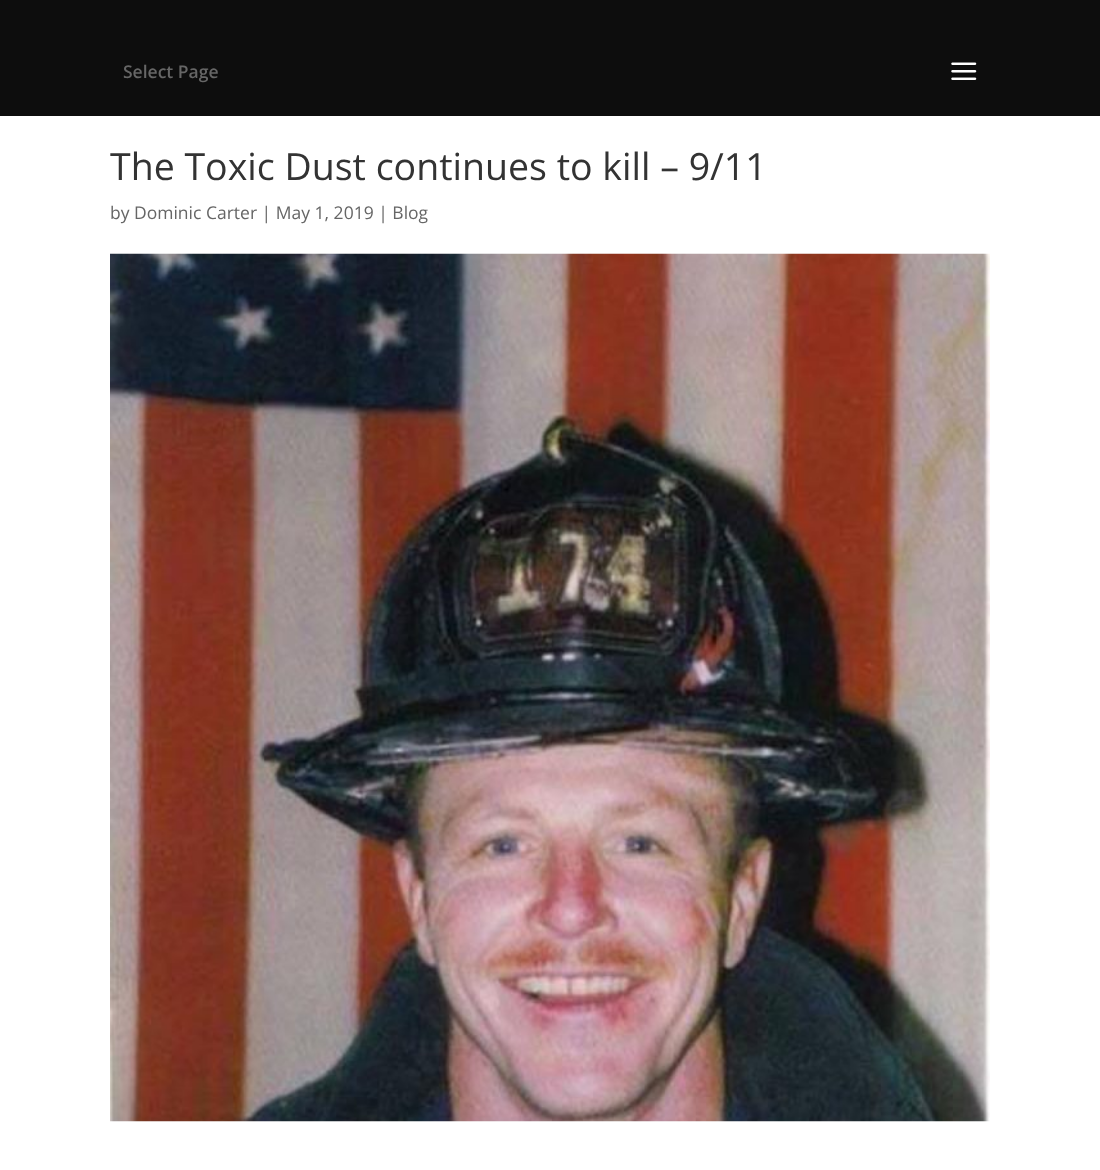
<svg xmlns="http://www.w3.org/2000/svg" width="1100" height="1170" viewBox="0 0 1100 1170">
  <style>
    .t1 { font: 600 17.5px Open Sans; fill: #666; }
    .t2 { font: 37.5px Open Sans; fill: #333; }
    .t3 { font: 17.5px Open Sans; fill: #666; }
  </style>
  <rect width="100%" height="100%" fill="#fff"/>
  <rect x="0" y="0" width="1100" height="116" fill="#0d0d0d"/>
  <text x="123" y="78" class="t1">Select Page</text>
  <image x="951" y="62" width="26" height="18" href="images/1.png"/>
  <text x="110" y="180" class="t2">The Toxic Dust continues to kill – 9/11</text>
  <text x="110" y="219" class="t3">by Dominic Carter | May 1, 2019 | Blog</text>
  <image x="110" y="253" width="880" height="869" href="images/2.png"/>
</svg>
